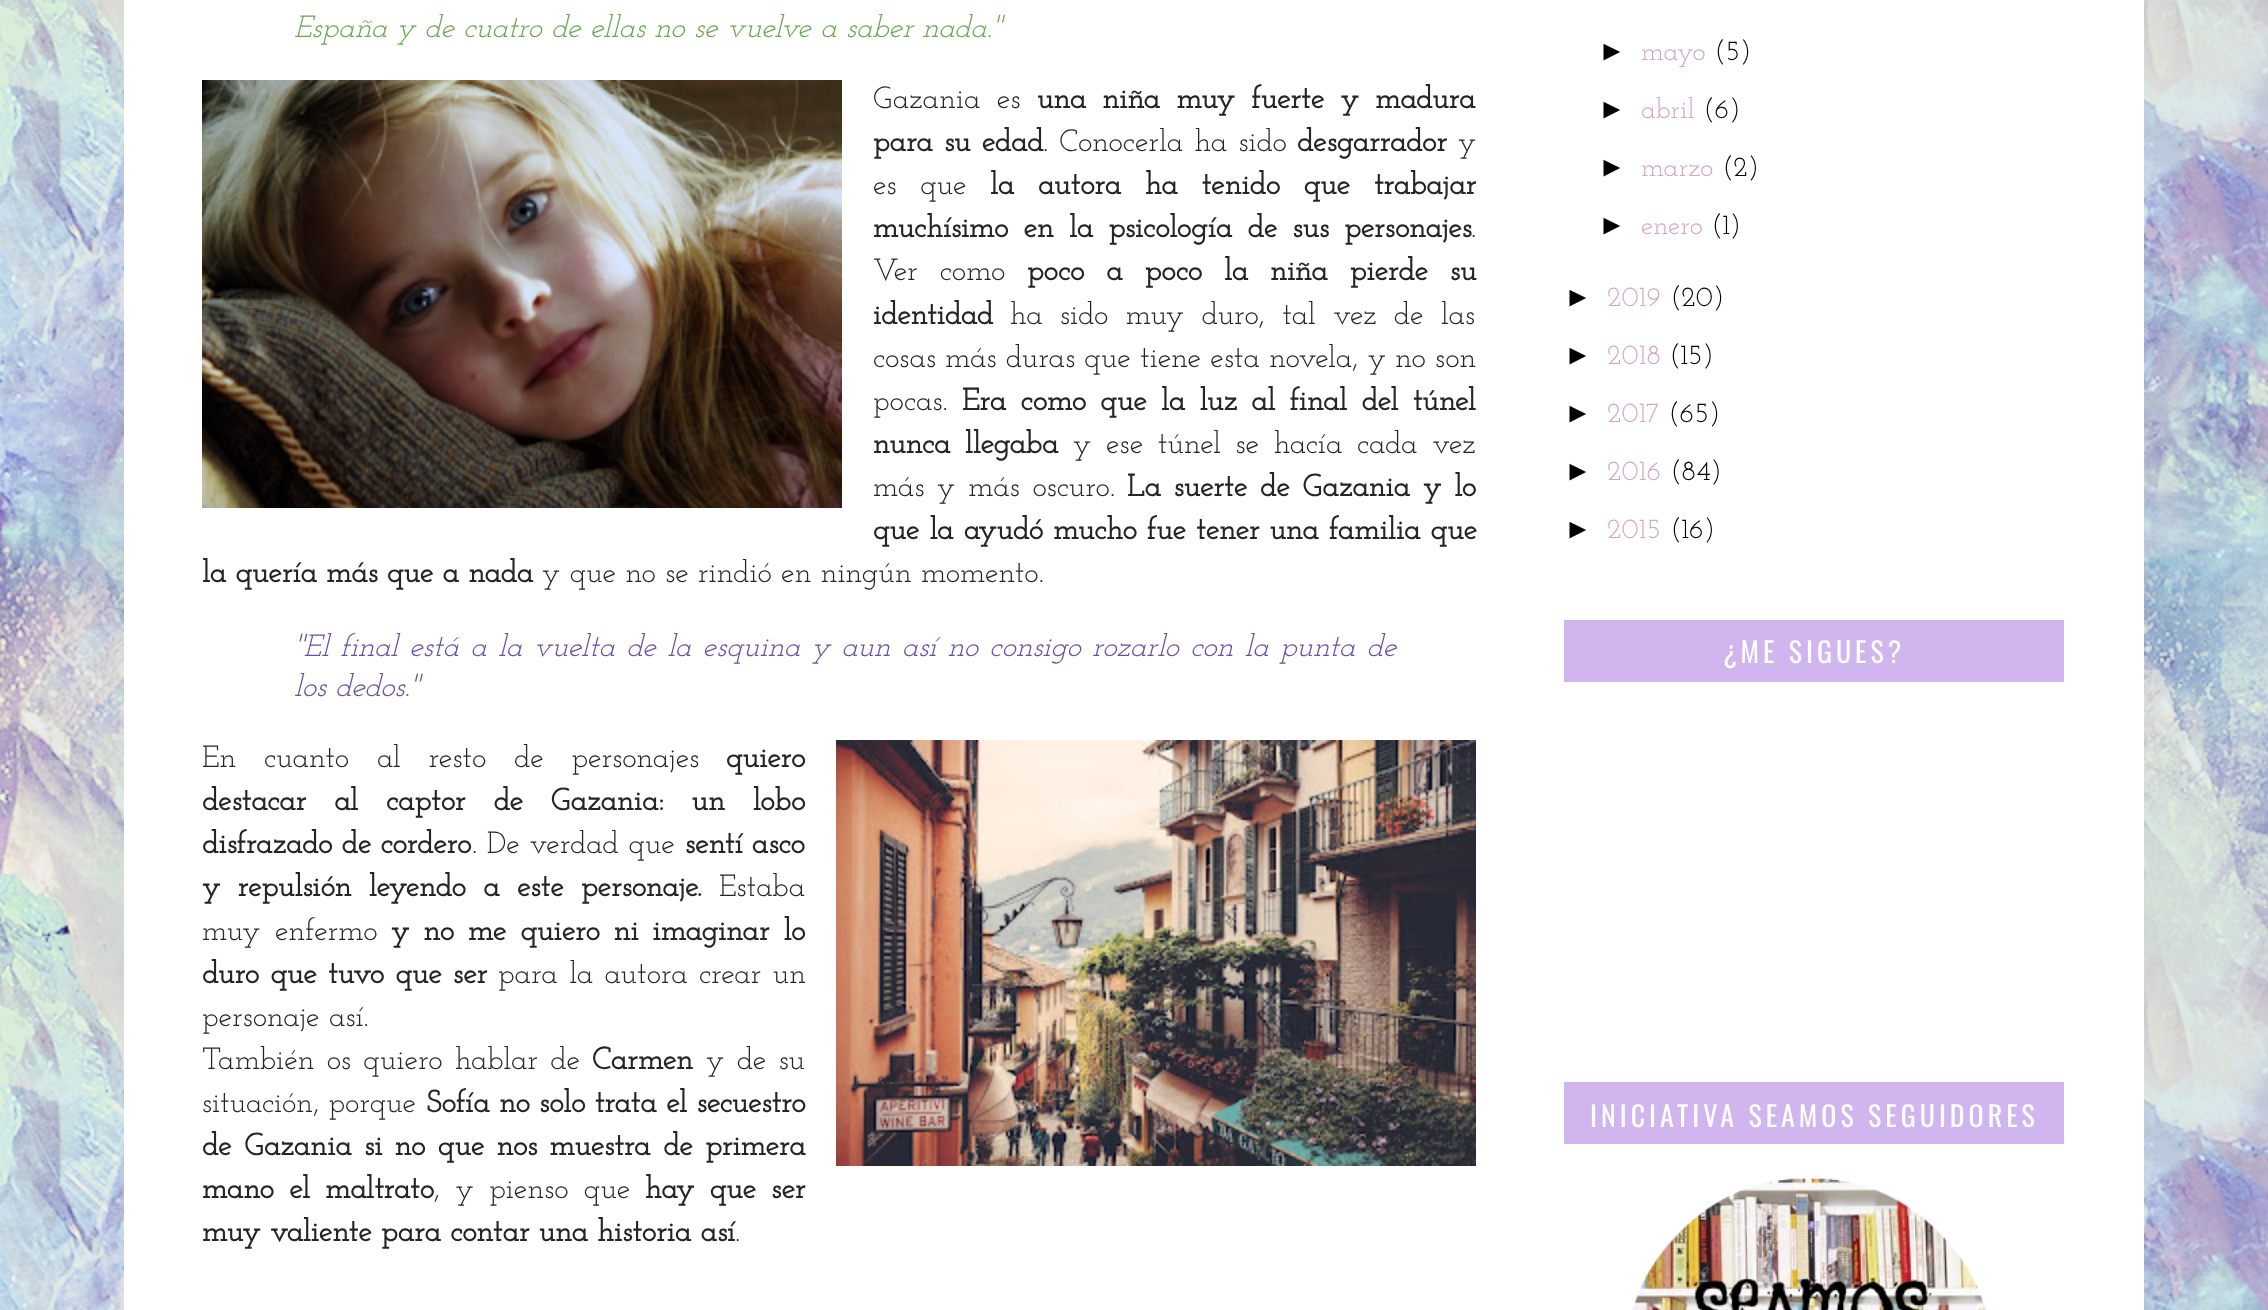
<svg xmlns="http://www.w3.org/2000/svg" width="2268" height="1310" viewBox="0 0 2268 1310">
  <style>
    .t1 { font: italic 100 30.8px Josefin Slab; fill: #6aa84f; }
    .t2 { font: 100 30.8px Josefin Slab; fill: #252525; }
    .t3 { font: bold 30.8px Josefin Slab; fill: #252525; }
    .t4 { font: italic 100 30.8px Josefin Slab; fill: #674ea7; }
    .t5 { font: 28px Liberation Sans; fill: #000; }
    .t6 { font: 100 28px Josefin Slab; fill: #d5a6bd; }
    .t7 { font: 100 28px Josefin Slab; fill: #000; }
    .t8 { font: 28px Oswald; letter-spacing: 4px; fill: #fff; }
  </style>
  <rect width="100%" height="100%" fill="#fff"/>
  <image x="0" y="0" width="2268" height="1310" href="images/1.png"/>
  <rect x="124" y="0" width="2020" height="1310" fill="#fff"/>
  <text x="294" y="37" class="t1">España y de cuatro de ellas no se vuelve a saber nada.''</text>
  <image x="202" y="80" width="640" height="428" href="images/2.png"/>
  <text x="873" y="108" word-spacing="7" class="t2">Gazania es</text>
  <text x="1037" y="108" word-spacing="7" class="t3">una niña muy fuerte y madura</text>
  <text x="873" y="151" word-spacing="2" class="t3">para su edad</text>
  <text x="1043" y="151" word-spacing="2" class="t2">. Conocerla ha sido</text>
  <text x="1297" y="151" class="t3">desgarrador</text>
  <text x="1458" y="151" class="t2">y</text>
  <text x="873" y="194" word-spacing="14.5" class="t2">es que</text>
  <text x="990" y="194" word-spacing="14.5" class="t3">la autora ha tenido que trabajar</text>
  <text x="873" y="237" word-spacing="6" class="t3">muchísimo en la psicología de sus personajes</text>
  <text x="1471" y="237" class="t2">.</text>
  <text x="873" y="280" word-spacing="12.75" class="t2">Ver como</text>
  <text x="1027" y="280" word-spacing="12.75" class="t3">poco a poco la niña pierde su</text>
  <text x="873" y="324" class="t3">identidad</text>
  <text x="1010" y="324" word-spacing="8" class="t2">ha sido muy duro, tal vez de las</text>
  <text x="873" y="367" class="t2">cosas más duras que tiene esta novela, y no son</text>
  <text x="873" y="410" class="t2">pocas.</text>
  <text x="962" y="410" word-spacing="5" class="t3">Era como que la luz al final del túnel</text>
  <text x="873" y="453" word-spacing="5" class="t3">nunca llegaba</text>
  <text x="1073" y="453" word-spacing="5.25" class="t2">y ese túnel se hacía cada vez</text>
  <text x="873" y="496" word-spacing="3.5" class="t2">más y más oscuro.</text>
  <text x="1127" y="496" word-spacing="3.5" class="t3">La suerte de Gazania y lo</text>
  <text x="873" y="539" word-spacing="0.75" class="t3">que la ayudó mucho fue tener una familia que</text>
  <text x="202" y="582" class="t3">la quería más que a nada</text>
  <text x="542" y="582" class="t2">y que no se rindió en ningún momento.</text>
  <text x="294" y="656" word-spacing="2" class="t4">''El final está a la vuelta de la esquina y aun así no consigo rozarlo con la punta de</text>
  <text x="294" y="696" class="t4">los dedos.''</text>
  <text x="202" y="767" word-spacing="18.5" class="t2">En cuanto al resto de personajes</text>
  <text x="726" y="767" class="t3">quiero</text>
  <image x="836" y="740" width="640" height="426" href="images/3.png"/>
  <text x="202" y="810" word-spacing="18.5" class="t3">destacar al captor de Gazania: un lobo</text>
  <text x="202" y="853" class="t3">disfrazado de cordero</text>
  <text x="472" y="853" word-spacing="0.5" class="t2">. De verdad que</text>
  <text x="685" y="853" class="t3">sentí asco</text>
  <text x="202" y="896" word-spacing="8" class="t3">y repulsión leyendo a este personaje.</text>
  <text x="719" y="896" class="t2">Estaba</text>
  <text x="202" y="940" word-spacing="5" class="t2">muy enfermo</text>
  <text x="391" y="940" word-spacing="4.75" class="t3">y no me quiero ni imaginar lo</text>
  <text x="202" y="983" word-spacing="2" class="t3">duro que tuvo que ser</text>
  <text x="498" y="983" word-spacing="2" class="t2">para la autora crear un</text>
  <text x="202" y="1026" class="t2">personaje así.</text>
  <text x="202" y="1069" word-spacing="3" class="t2">También os quiero hablar de</text>
  <text x="592" y="1069" class="t3">Carmen</text>
  <text x="706" y="1069" word-spacing="3" class="t2">y de su</text>
  <text x="202" y="1112" class="t2">situación, porque</text>
  <text x="426" y="1112" word-spacing="0.25" class="t3">Sofía no solo trata el secuestro</text>
  <text x="202" y="1155" word-spacing="3.25" class="t3">de Gazania si no que nos muestra de primera</text>
  <text x="202" y="1198" word-spacing="6" class="t3">mano el maltrato</text>
  <text x="434" y="1198" word-spacing="6" class="t2">, y pienso que</text>
  <text x="645" y="1198" word-spacing="6" class="t3">hay que ser</text>
  <text x="202" y="1241" class="t3">muy valiente para contar una historia así</text>
  <text x="735" y="1241" class="t2">.</text>
  <text x="1598" y="60" class="t5">►</text>
  <text x="1641" y="60" class="t6">mayo</text>
  <text x="1714" y="60" class="t7">(5)</text>
  <text x="1598" y="118" class="t5">►</text>
  <text x="1641" y="118" class="t6">abril</text>
  <text x="1703" y="118" class="t7">(6)</text>
  <text x="1598" y="176" class="t5">►</text>
  <text x="1641" y="176" class="t6">marzo</text>
  <text x="1722" y="176" class="t7">(2)</text>
  <text x="1598" y="234" class="t5">►</text>
  <text x="1641" y="234" class="t6">enero</text>
  <text x="1711" y="234" class="t7">(1)</text>
  <text x="1564" y="306" class="t5">►</text>
  <text x="1607" y="306" class="t6">2019</text>
  <text x="1670" y="306" class="t7">(20)</text>
  <text x="1564" y="364" class="t5">►</text>
  <text x="1607" y="364" class="t6">2018</text>
  <text x="1669" y="364" class="t7">(15)</text>
  <text x="1564" y="422" class="t5">►</text>
  <text x="1607" y="422" class="t6">2017</text>
  <text x="1668" y="422" class="t7">(65)</text>
  <text x="1564" y="480" class="t5">►</text>
  <text x="1607" y="480" class="t6">2016</text>
  <text x="1670" y="480" class="t7">(84)</text>
  <text x="1564" y="538" class="t5">►</text>
  <text x="1607" y="538" class="t6">2015</text>
  <text x="1670" y="538" class="t7">(16)</text>
  <rect x="1564" y="620" width="500" height="62" fill="#d1b5ef"/>
  <text x="1723" y="663" class="t8">¿ME SIGUES?</text>
  <rect x="1564" y="1082" width="500" height="62" fill="#d1b5ef"/>
  <text x="1590" y="1127" class="t8">INICIATIVA SEAMOS SEGUIDORES</text>
  <image x="1632" y="1178" width="354" height="132" href="images/4.png"/>
</svg>
